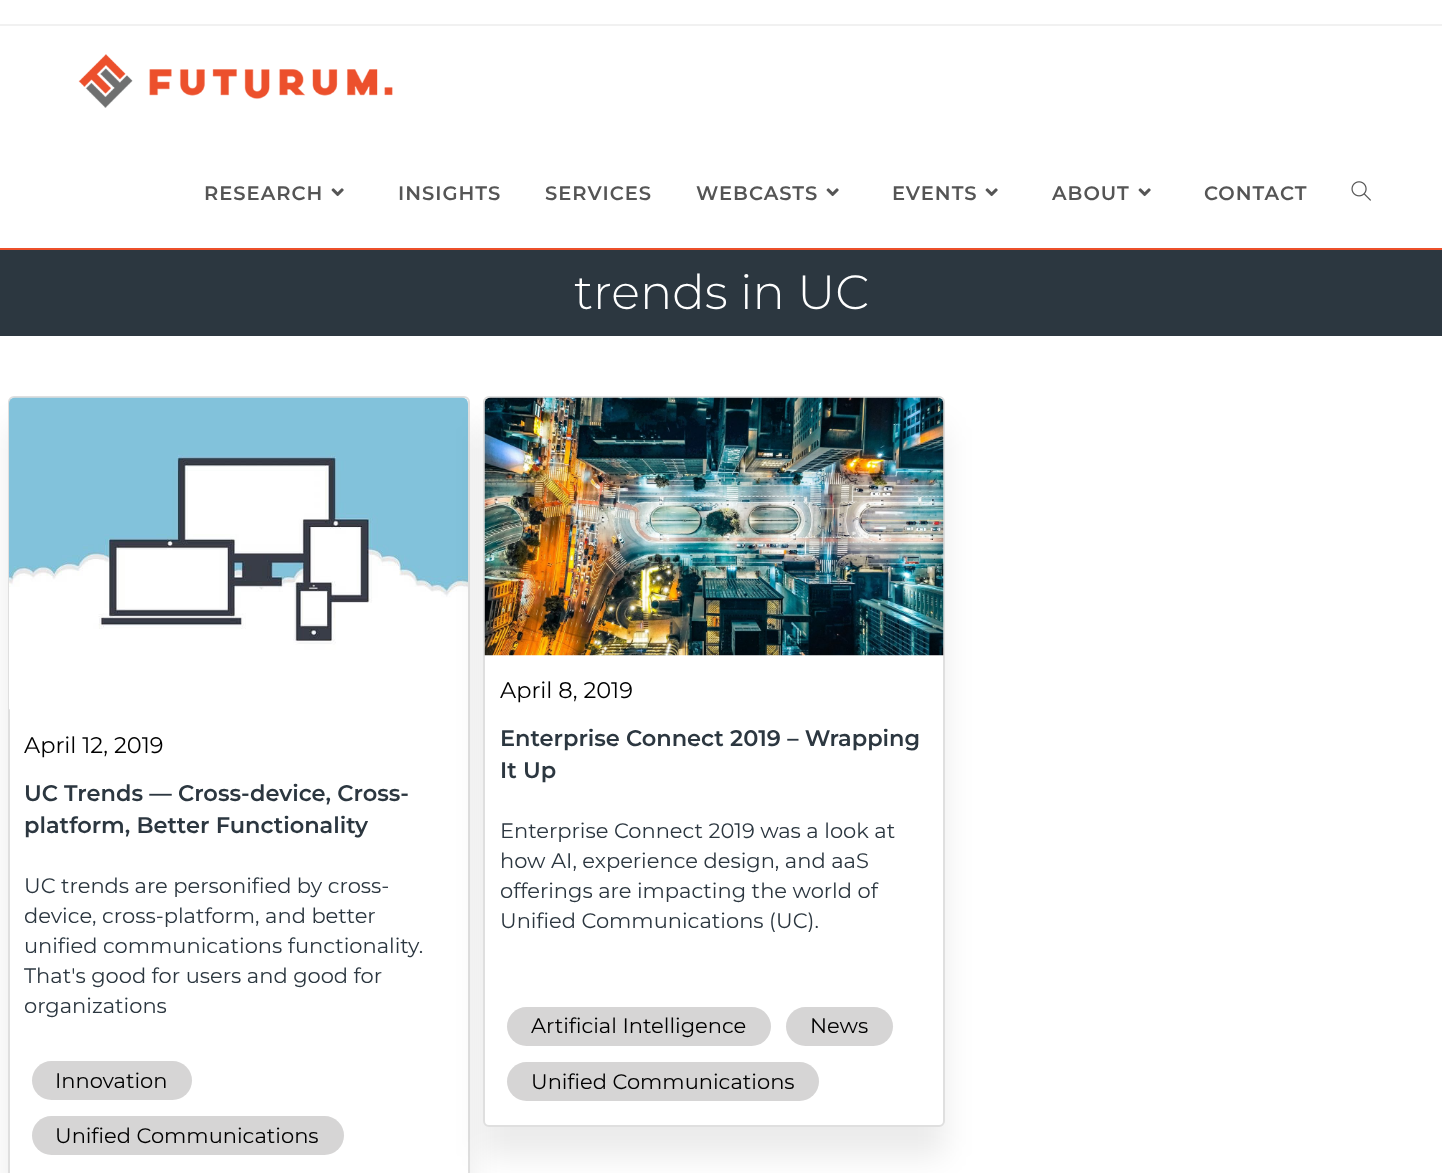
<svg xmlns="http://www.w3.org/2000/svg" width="1442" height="1173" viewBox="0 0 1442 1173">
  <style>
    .t1 { font: 600 19.5px Montserrat; letter-spacing: 1px; fill: #555; }
    .t2 { font: 300 48px Montserrat; fill: #fff; }
    .t3 { font: 22.5px Montserrat; fill: #000; }
    .t4 { font: 600 22.5px Montserrat; fill: #2c3740; }
    .t5 { font: 21px Montserrat; fill: #2c3740; }
    .t6 { font: 21px Montserrat; fill: #000; }
  </style>
  <rect width="100%" height="100%" fill="#fff"/>
  <rect x="0" y="24" width="1442" height="2" fill="#f1f1f1"/>
  <rect x="0" y="248" width="1442" height="2" fill="#ec502b"/>
  <image x="78" y="54" width="315" height="54" href="images/1.png"/>
  <text x="204" y="200" class="t1">RESEARCH</text>
  <image x="331" y="188" width="13" height="9" href="images/2.png"/>
  <text x="398" y="200" class="t1">INSIGHTS</text>
  <text x="545" y="200" class="t1">SERVICES</text>
  <text x="696" y="200" class="t1">WEBCASTS</text>
  <image x="826" y="188" width="13" height="9" href="images/2.png"/>
  <text x="892" y="200" class="t1">EVENTS</text>
  <image x="985" y="188" width="13" height="9" href="images/2.png"/>
  <text x="1052" y="200" class="t1">ABOUT</text>
  <image x="1138" y="188" width="13" height="9" href="images/2.png"/>
  <text x="1204" y="200" class="t1">CONTACT</text>
  <image x="1351" y="181" width="20" height="20" href="images/3.png"/>
  <rect x="0" y="250" width="1442" height="86" fill="#2c3740"/>
  <text x="574" y="309" class="t2">trends in UC</text>
  <rect x="8" y="426" width="462" height="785" rx="6" fill="#00000014" filter="blur(15px)"/>
  <rect x="9" y="397" width="460" height="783" rx="5" fill="#fff" stroke="#dfdfdf" stroke-width="2"/>
  <image x="9" y="397" width="459" height="313" href="images/4.png"/>
  <text x="24" y="753" class="t3">April 12, 2019</text>
  <text x="24" y="801" class="t4">UC Trends — Cross-device, Cross-</text>
  <text x="24" y="833" class="t4">platform, Better Functionality</text>
  <text x="24" y="893" class="t5">UC trends are personified by cross-</text>
  <text x="24" y="923" class="t5">device, cross-platform, and better</text>
  <text x="24" y="953" class="t5">unified communications functionality.</text>
  <text x="24" y="983" class="t5">That's good for users and good for</text>
  <text x="24" y="1013" class="t5">organizations</text>
  <rect x="32" y="1061" width="160" height="39" rx="19.5" fill="#d6d5d5"/>
  <text x="55" y="1088" class="t6">Innovation</text>
  <rect x="32" y="1116" width="312" height="39" rx="19.5" fill="#d6d5d5"/>
  <text x="55" y="1143" class="t6">Unified Communications</text>
  <rect x="483" y="426" width="462" height="731" rx="6" fill="#00000014" filter="blur(15px)"/>
  <rect x="484" y="397" width="460" height="729" rx="5" fill="#fff" stroke="#dfdfdf" stroke-width="2"/>
  <image x="484" y="397" width="460" height="259" href="images/5.png"/>
  <text x="500" y="698" class="t3">April 8, 2019</text>
  <text x="500" y="746" class="t4">Enterprise Connect 2019 – Wrapping</text>
  <text x="500" y="778" class="t4">It Up</text>
  <text x="500" y="838" class="t5">Enterprise Connect 2019 was a look at</text>
  <text x="500" y="868" class="t5">how AI, experience design, and aaS</text>
  <text x="500" y="898" class="t5">offerings are impacting the world of</text>
  <text x="500" y="928" class="t5">Unified Communications (UC).</text>
  <rect x="507" y="1007" width="264" height="39" rx="19.5" fill="#d6d5d5"/>
  <text x="531" y="1033" class="t6">Artificial Intelligence</text>
  <rect x="786" y="1007" width="107" height="39" rx="19.5" fill="#d6d5d5"/>
  <text x="810" y="1033" class="t6">News</text>
  <rect x="507" y="1062" width="312" height="39" rx="19.5" fill="#d6d5d5"/>
  <text x="531" y="1089" class="t6">Unified Communications</text>
</svg>
